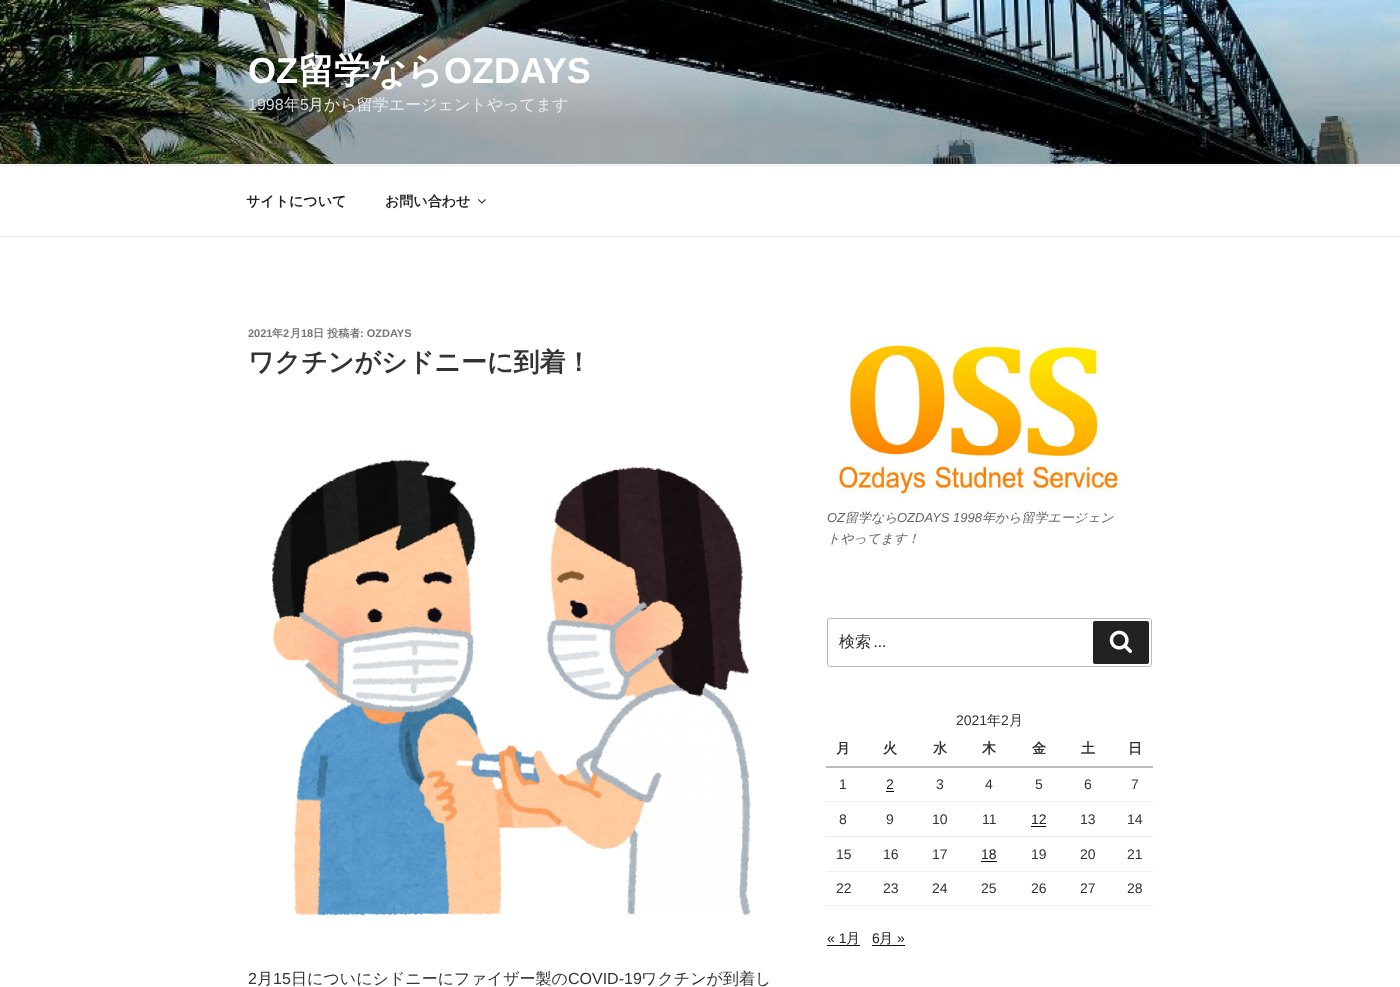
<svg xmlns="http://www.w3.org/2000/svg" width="1400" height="987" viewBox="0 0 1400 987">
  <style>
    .t1 { font: bold 36px Liberation Sans; fill: #fff; }
    .t2 { font: bold 36px WenQuanYi Zen Hei; fill: #fff; }
    .t3 { font: 16px Liberation Sans; fill: #d6d8d9; }
    .t4 { font: 500 16px WenQuanYi Zen Hei; fill: #d1d2d1; }
    .t5 { font: 500 16px WenQuanYi Zen Hei; fill: #eaebea; }
    .t6 { font: bold 14px WenQuanYi Zen Hei; fill: #222; }
    .t7 { font: bold 11px Liberation Sans; fill: #767676; }
    .t8 { font: bold 11px WenQuanYi Zen Hei; fill: #767676; }
    .t9 { font: bold 26px WenQuanYi Zen Hei; fill: #333; }
    .t10 { font: 16px Liberation Sans; fill: #333; }
    .t11 { font: 500 16px WenQuanYi Zen Hei; fill: #333; }
    .t12 { font: italic 13px Liberation Sans; fill: #666; }
    .t13 { font: italic 500 13px WenQuanYi Zen Hei; fill: #666; }
    .t14 { font: 16px Libre Franklin; fill: #333; }
    .t15 { font: 14px Liberation Sans; fill: #333; }
    .t16 { font: 500 14px WenQuanYi Zen Hei; fill: #333; }
    .t17 { font: bold 14px WenQuanYi Zen Hei; fill: #333; }
    .t18 { font: 14px Liberation Sans; fill: #222; }
    .t19 { font: 500 14px WenQuanYi Zen Hei; fill: #222; }
  </style>
  <rect width="100%" height="100%" fill="#fff"/>
  <rect x="0" y="164" width="1400" height="1" fill="#fafafa"/>
  <image x="0" y="0" width="1400" height="164" href="images/1.png"/>
  <text x="248" y="83" class="t1">OZ</text>
  <text x="298" y="83" class="t2">留学なら</text>
  <text x="444" y="83" class="t1">OZDAYS</text>
  <text x="248" y="110" class="t3">1998</text>
  <text x="284" y="110" class="t4">年</text>
  <text x="300" y="110" class="t3">5</text>
  <text x="308" y="110" class="t5">月から留学エージェントやってます</text>
  <rect x="0" y="165" width="1400" height="1" fill="#eee"/>
  <rect x="0" y="236" width="1400" height="1" fill="#eee"/>
  <text x="246" y="206" class="t6">サイトについて</text>
  <text x="385" y="206" class="t6">お問い合わせ</text>
  <image x="478" y="199" width="8" height="5" href="images/2.png"/>
  <text x="248" y="337" class="t7">2021</text>
  <text x="272" y="337" class="t8">年</text>
  <text x="283" y="337" class="t7">2</text>
  <text x="290" y="337" class="t8">月</text>
  <text x="301" y="337" class="t7">18</text>
  <text x="313" y="337" class="t8">日 投稿者</text>
  <text x="360" y="337" class="t7">: OZDAYS</text>
  <text x="248" y="371" class="t9">ワクチンがシドニーに到着！</text>
  <image x="272" y="459" width="479" height="457" href="images/3.png"/>
  <text x="248" y="984" class="t10">2</text>
  <text x="257" y="984" class="t11">月</text>
  <text x="273" y="984" class="t10">15</text>
  <text x="291" y="984" class="t11">日についにシドニーにファイザー製の</text>
  <text x="568" y="984" class="t10">COVID-19</text>
  <text x="641" y="984" class="t11">ワクチンが到着し</text>
  <image x="838" y="344" width="284" height="153" href="images/4.png"/>
  <text x="827" y="522" class="t12">OZ</text>
  <text x="845" y="522" class="t13">留学なら</text>
  <text x="897" y="522" class="t12">OZDAYS 1998</text>
  <text x="982" y="522" class="t13">年から留学エージェン</text>
  <text x="827" y="543" class="t13">トやってます！</text>
  <rect x="827.5" y="618.5" width="324" height="48" rx="2.5" fill="none" stroke="#bbb"/>
  <text x="839" y="647" class="t11">検索</text>
  <text x="874" y="647" class="t14">…</text>
  <rect x="1093" y="621" width="56" height="43" rx="2" fill="#222"/>
  <image x="1109" y="630" width="23" height="23" href="images/5.png"/>
  <text x="956" y="725" class="t15">2021</text>
  <text x="987" y="725" class="t16">年</text>
  <text x="1001" y="725" class="t15">2</text>
  <text x="1009" y="725" class="t16">月</text>
  <text x="836" y="753" class="t17">月</text>
  <text x="883" y="753" class="t17">火</text>
  <text x="933" y="753" class="t17">水</text>
  <text x="982" y="753" class="t17">木</text>
  <text x="1032" y="753" class="t17">金</text>
  <text x="1081" y="753" class="t17">土</text>
  <rect x="826" y="766" width="327" height="2" fill="#bbb"/>
  <text x="1128" y="753" class="t17">日</text>
  <rect x="826" y="801" width="327" height="1" fill="#eee"/>
  <text x="839" y="789" class="t15">1</text>
  <text x="886" y="789" class="t18">2</text>
  <rect x="886" y="791" width="8" height="1" fill="#0f0f0f"/>
  <text x="936" y="789" class="t15">3</text>
  <text x="985" y="789" class="t15">4</text>
  <text x="1035" y="789" class="t15">5</text>
  <text x="1084" y="789" class="t15">6</text>
  <text x="1131" y="789" class="t15">7</text>
  <rect x="826" y="836" width="327" height="1" fill="#eee"/>
  <text x="839" y="824" class="t15">8</text>
  <text x="886" y="824" class="t15">9</text>
  <text x="932" y="824" class="t15">10</text>
  <text x="982" y="824" class="t15">11</text>
  <text x="1031" y="824" class="t18">12</text>
  <rect x="1031" y="826" width="15" height="1" fill="#0f0f0f"/>
  <text x="1080" y="824" class="t15">13</text>
  <text x="1127" y="824" class="t15">14</text>
  <rect x="826" y="871" width="327" height="1" fill="#eee"/>
  <text x="836" y="859" class="t15">15</text>
  <text x="883" y="859" class="t15">16</text>
  <text x="932" y="859" class="t15">17</text>
  <text x="981" y="859" class="t18">18</text>
  <rect x="981" y="861" width="16" height="1" fill="#0f0f0f"/>
  <text x="1031" y="859" class="t15">19</text>
  <text x="1080" y="859" class="t15">20</text>
  <text x="1127" y="859" class="t15">21</text>
  <rect x="826" y="905" width="327" height="1" fill="#eee"/>
  <text x="836" y="893" class="t15">22</text>
  <text x="883" y="893" class="t15">23</text>
  <text x="932" y="893" class="t15">24</text>
  <text x="981" y="893" class="t15">25</text>
  <text x="1031" y="893" class="t15">26</text>
  <text x="1080" y="893" class="t15">27</text>
  <text x="1127" y="893" class="t15">28</text>
  <text x="827" y="943" class="t18">« 1</text>
  <text x="846" y="943" class="t19">月</text>
  <rect x="827" y="945" width="33" height="1" fill="#0f0f0f"/>
  <text x="872" y="943" class="t18">6</text>
  <text x="879" y="943" class="t19">月</text>
  <text x="897" y="943" class="t18">»</text>
  <rect x="872" y="945" width="33" height="1" fill="#0f0f0f"/>
</svg>
